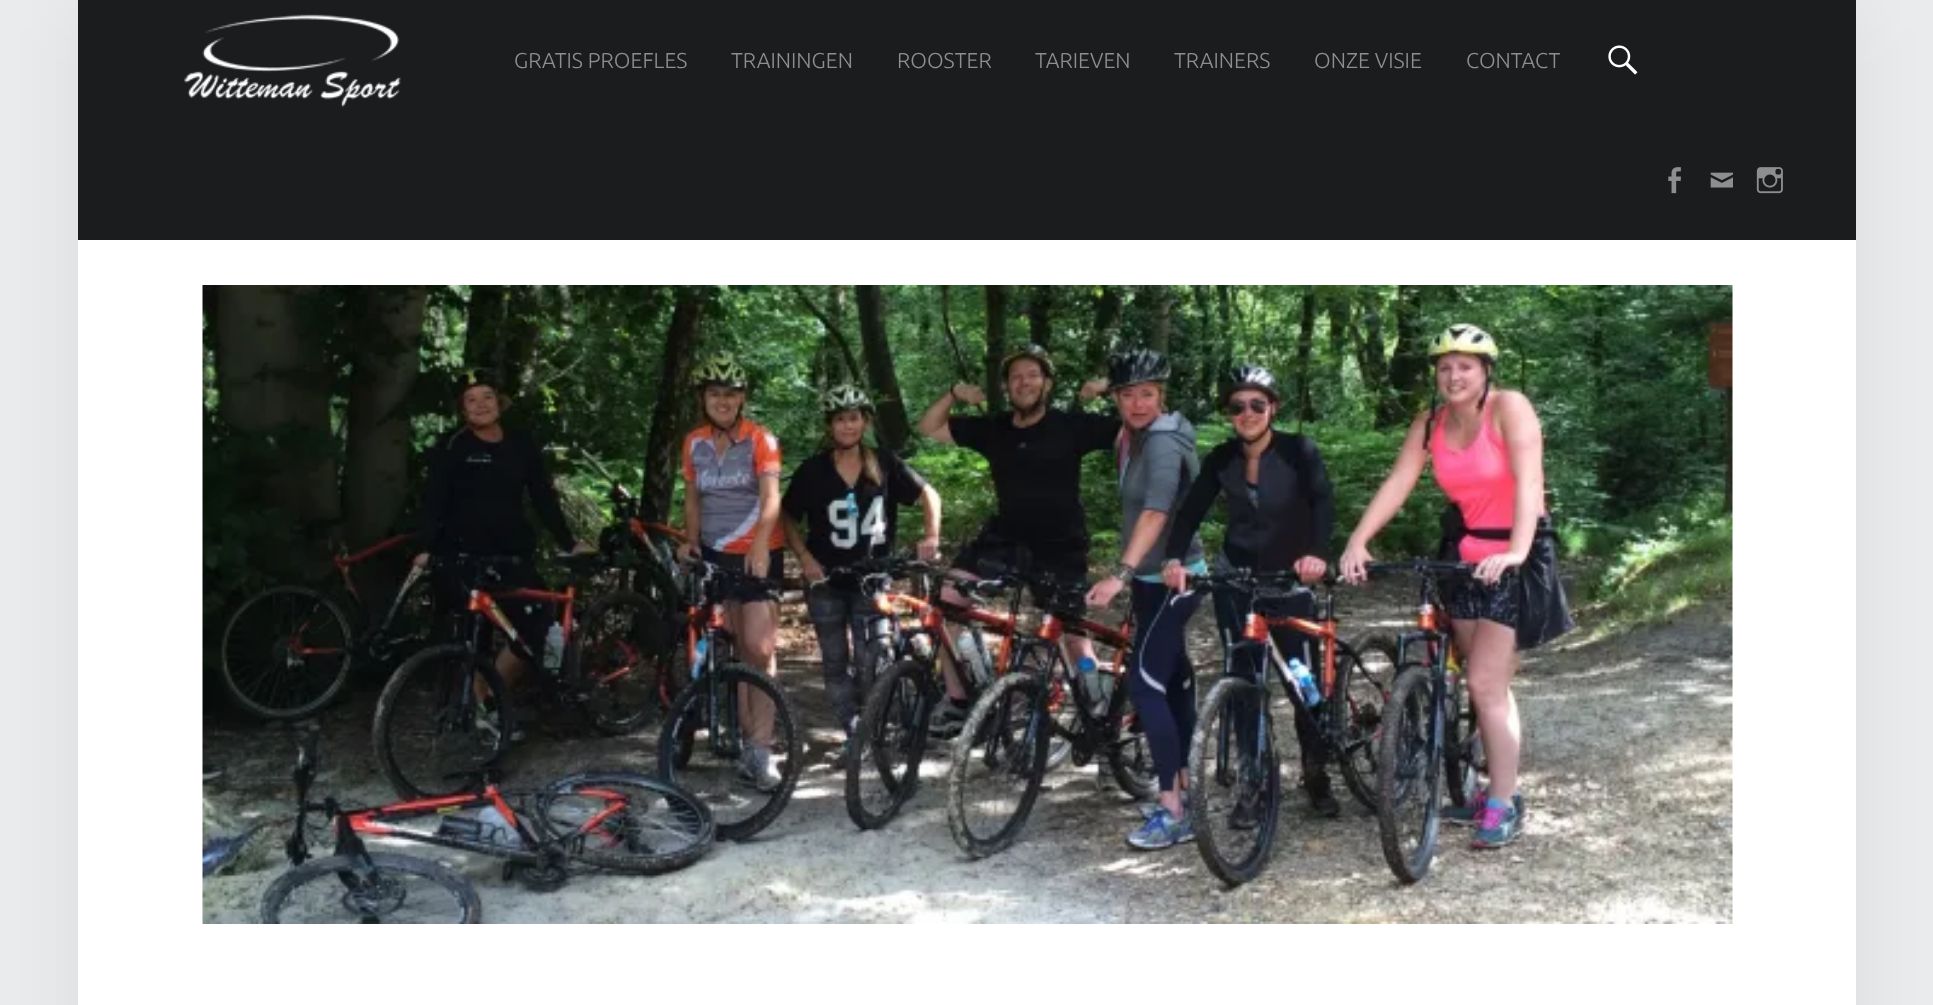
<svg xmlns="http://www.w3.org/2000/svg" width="1933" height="1005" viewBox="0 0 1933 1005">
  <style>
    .t1 { font: 300 21.5px Ubuntu; fill: #8d8e8f; }
  </style>
  <rect width="100%" height="100%" fill="#eaecee"/>
  <rect x="78" y="0" width="1778" height="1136" fill="#00000012" filter="blur(43.5px)"/>
  <rect x="78" y="240" width="1778" height="765" fill="#fff"/>
  <rect x="78" y="0" width="1778" height="240" fill="#1a1c1e"/>
  <image x="184" y="14" width="217" height="93" href="images/1.png"/>
  <text x="514" y="68" class="t1">GRATIS PROEFLES</text>
  <text x="731" y="68" class="t1">TRAININGEN</text>
  <text x="897" y="68" class="t1">ROOSTER</text>
  <text x="1035" y="68" class="t1">TARIEVEN</text>
  <text x="1174" y="68" class="t1">TRAINERS</text>
  <text x="1314" y="68" class="t1">ONZE VISIE</text>
  <text x="1466" y="68" class="t1">CONTACT</text>
  <image x="1608" y="45" width="30" height="30" href="images/2.png"/>
  <image x="1668" y="167" width="13" height="27" href="images/3.png"/>
  <image x="1710" y="172" width="23" height="16" href="images/4.png"/>
  <image x="1756" y="167" width="27" height="27" href="images/5.png"/>
  <image x="202" y="285" width="1531" height="639" href="images/6.png"/>
</svg>
